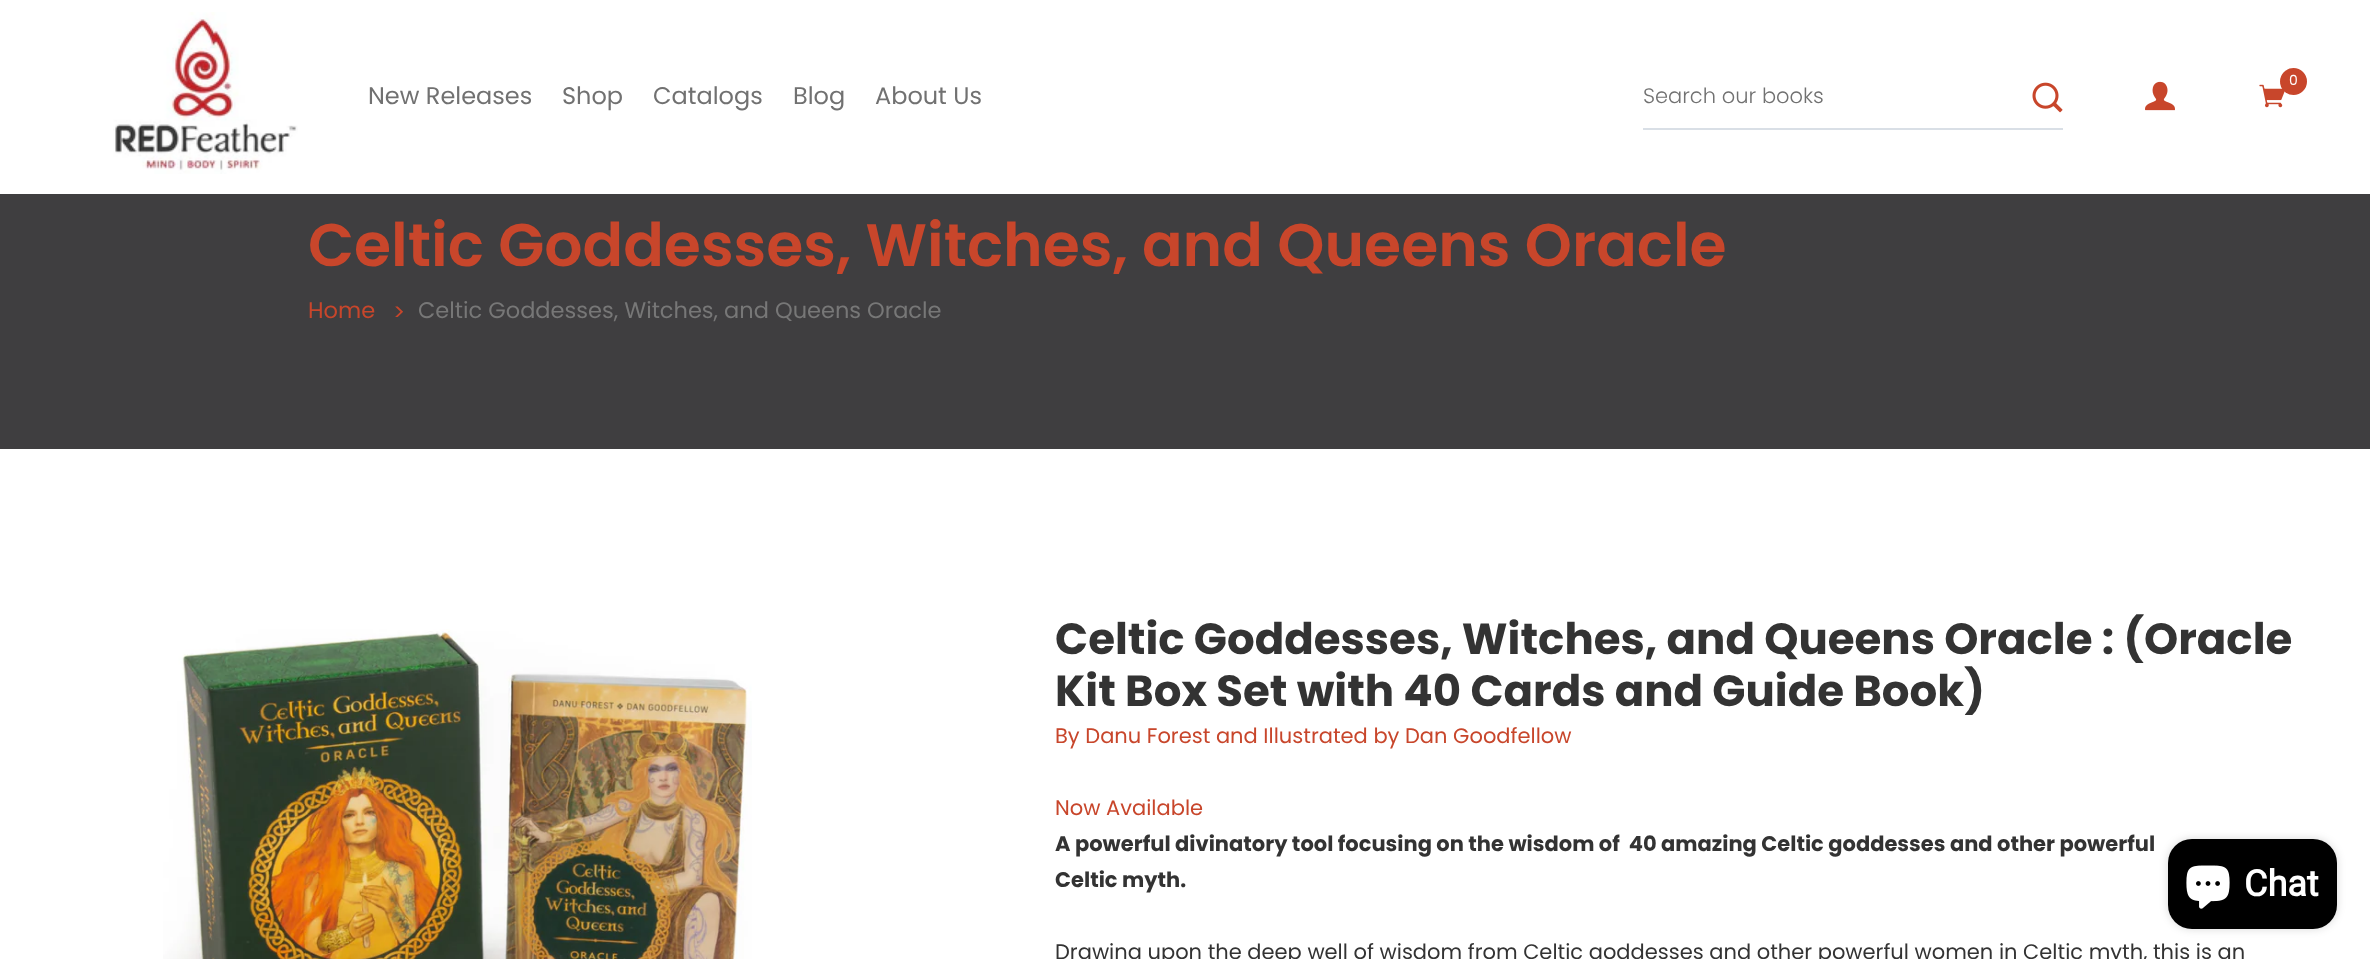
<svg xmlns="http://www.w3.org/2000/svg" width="2370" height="959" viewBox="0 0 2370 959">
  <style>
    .t1 { font: 24px Poppins; fill: #717171; }
    .t2 { font: 14px Poppins; fill: #fff; }
    .t3 { font: 300 21px Poppins; fill: #717171; }
    .t4 { font: 600 60px Poppins; fill: #c8462b; }
    .t5 { font: 22.5px Poppins; fill: #c8462b; }
    .t6 { font: 22.5px Poppins; fill: #777; }
    .t7 { font: bold 43.5px Poppins; fill: #333; }
    .t8 { font: 21px Poppins; fill: #c8462b; }
    .t9 { font: bold 21px Poppins; fill: #333; }
    .t10 { font: 21px Poppins; fill: #333; }
    .t11 { font: bold 36px Roboto; fill: #fff; }
  </style>
  <rect width="100%" height="100%" fill="#fff"/>
  <image x="113" y="12" width="185" height="162" href="images/1.png"/>
  <text x="368" y="104" class="t1">New Releases</text>
  <text x="562" y="104" class="t1">Shop</text>
  <text x="653" y="104" class="t1">Catalogs</text>
  <text x="793" y="104" class="t1">Blog</text>
  <text x="875" y="104" class="t1">About Us</text>
  <image x="2259" y="84" width="26" height="24" href="images/2.png"/>
  <circle cx="2293.5" cy="81.5" r="13.5" fill="#c8462b"/>
  <text x="2289" y="85" class="t2">0</text>
  <rect x="1643" y="128" width="420" height="2" fill="#d9dfe6"/>
  <text x="1643" y="103" class="t3">Search our books</text>
  <image x="2032" y="82" width="31" height="31" href="images/3.png"/>
  <image x="2145" y="81" width="30" height="30" href="images/4.png"/>
  <rect x="0" y="194" width="2370" height="255" fill="#3f3e40"/>
  <text x="308" y="266" class="t4">Celtic Goddesses, Witches, and Queens Oracle</text>
  <text x="308" y="318" class="t5">Home</text>
  <text x="393" y="320" class="t5">&gt;</text>
  <text x="418" y="318" class="t6">Celtic Goddesses, Witches, and Queens Oracle</text>
  <image x="163" y="629" width="589" height="330" href="images/5.png"/>
  <text x="1055" y="654" class="t7">Celtic Goddesses, Witches, and Queens Oracle : (Oracle</text>
  <text x="1055" y="706" class="t7">Kit Box Set with 40 Cards and Guide Book)</text>
  <text x="1055" y="743" class="t8">By Danu Forest and Illustrated by Dan Goodfellow</text>
  <text x="1055" y="815" class="t8">Now Available</text>
  <text x="1055" y="851" class="t9" xml:space="preserve">A powerful divinatory tool focusing on the wisdom of  40 amazing Celtic goddesses and other powerful</text>
  <text x="1055" y="887" class="t9">Celtic myth.</text>
  <text x="1055" y="959" class="t10">Drawing upon the deep well of wisdom from Celtic goddesses and other powerful women in Celtic myth, this is an</text>
  <rect x="2168" y="839" width="169" height="90" rx="24" fill="#00000026" filter="blur(4px)"/>
  <rect x="2168" y="839" width="169" height="90" rx="24" fill="#000"/>
  <image x="2186" y="865" width="44" height="44" href="images/6.png"/>
  <text x="2244" y="896" class="t11">Chat</text>
</svg>
